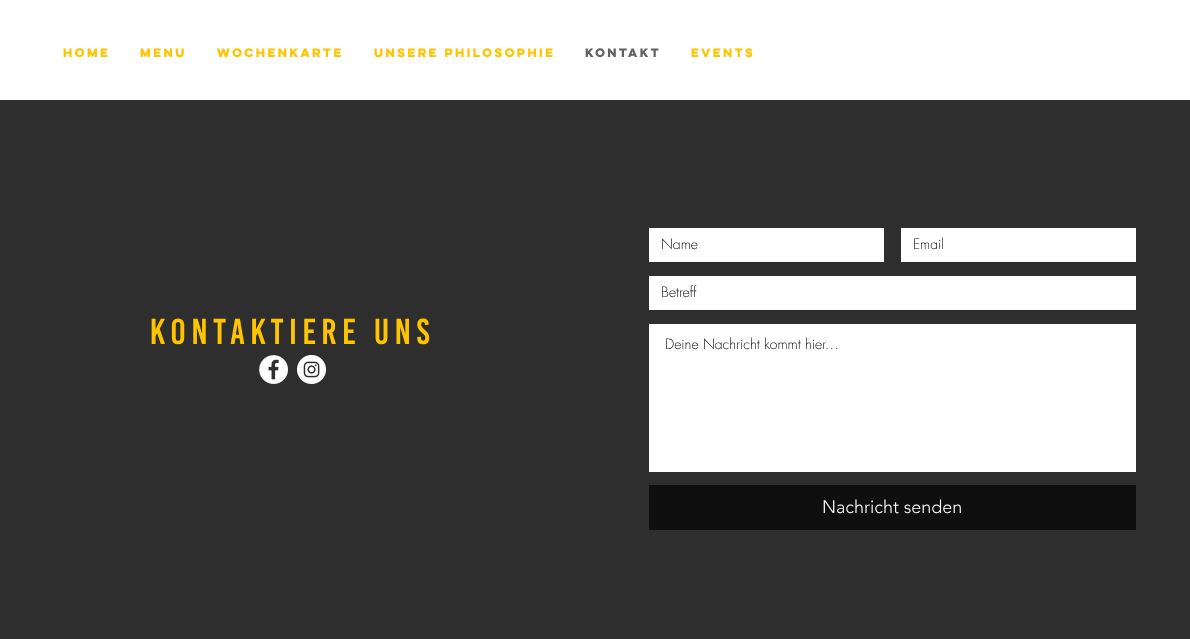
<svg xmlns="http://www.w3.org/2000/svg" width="1190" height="639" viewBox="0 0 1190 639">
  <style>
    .t1 { font: bold 11px 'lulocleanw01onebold'; fill: #ffc400; }
    .t2 { font: bold 11px 'lulocleanw01onebold'; fill: #626262; }
    .t3 { font: 36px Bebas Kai; letter-spacing: 5.4px; fill: #ffc400; }
    .t4 { font: 300 14px futura; fill: #0f0f0f; }
    .t5 { font: 300 18px 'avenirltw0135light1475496'; fill: #fff; }
  </style>
  <rect width="100%" height="100%" fill="#fff"/>
  <text x="63" y="57" class="t1">HOME</text>
  <text x="140" y="57" class="t1">MENU</text>
  <text x="217" y="57" class="t1">WOCHENKARTE</text>
  <text x="374" y="57" class="t1">UNSERE PHILOSOPHIE</text>
  <text x="585" y="57" class="t2">KONTAKT</text>
  <text x="691" y="57" class="t1">EVENTS</text>
  <rect x="0" y="100" width="1190" height="539" fill="#2f2e2e"/>
  <text x="150" y="344" class="t3">KONTAKTIERE UNS</text>
  <image x="259" y="355" width="29" height="29" href="images/1.png"/>
  <image x="297" y="355" width="29" height="29" href="images/2.png"/>
  <rect x="649" y="228" width="235" height="34" fill="#fff"/>
  <text x="661" y="249" class="t4">Name</text>
  <rect x="901" y="228" width="235" height="34" fill="#fff"/>
  <text x="913" y="249" class="t4">Email</text>
  <rect x="649" y="276" width="487" height="34" fill="#fff"/>
  <text x="661" y="297" class="t4">Betreff</text>
  <rect x="649" y="324" width="487" height="148" fill="#fff"/>
  <text x="665" y="349" class="t4">Deine Nachricht kommt hier…</text>
  <rect x="649" y="485" width="487" height="45" fill="#0f0f0f"/>
  <text x="822" y="513" class="t5">Nachricht senden</text>
</svg>
